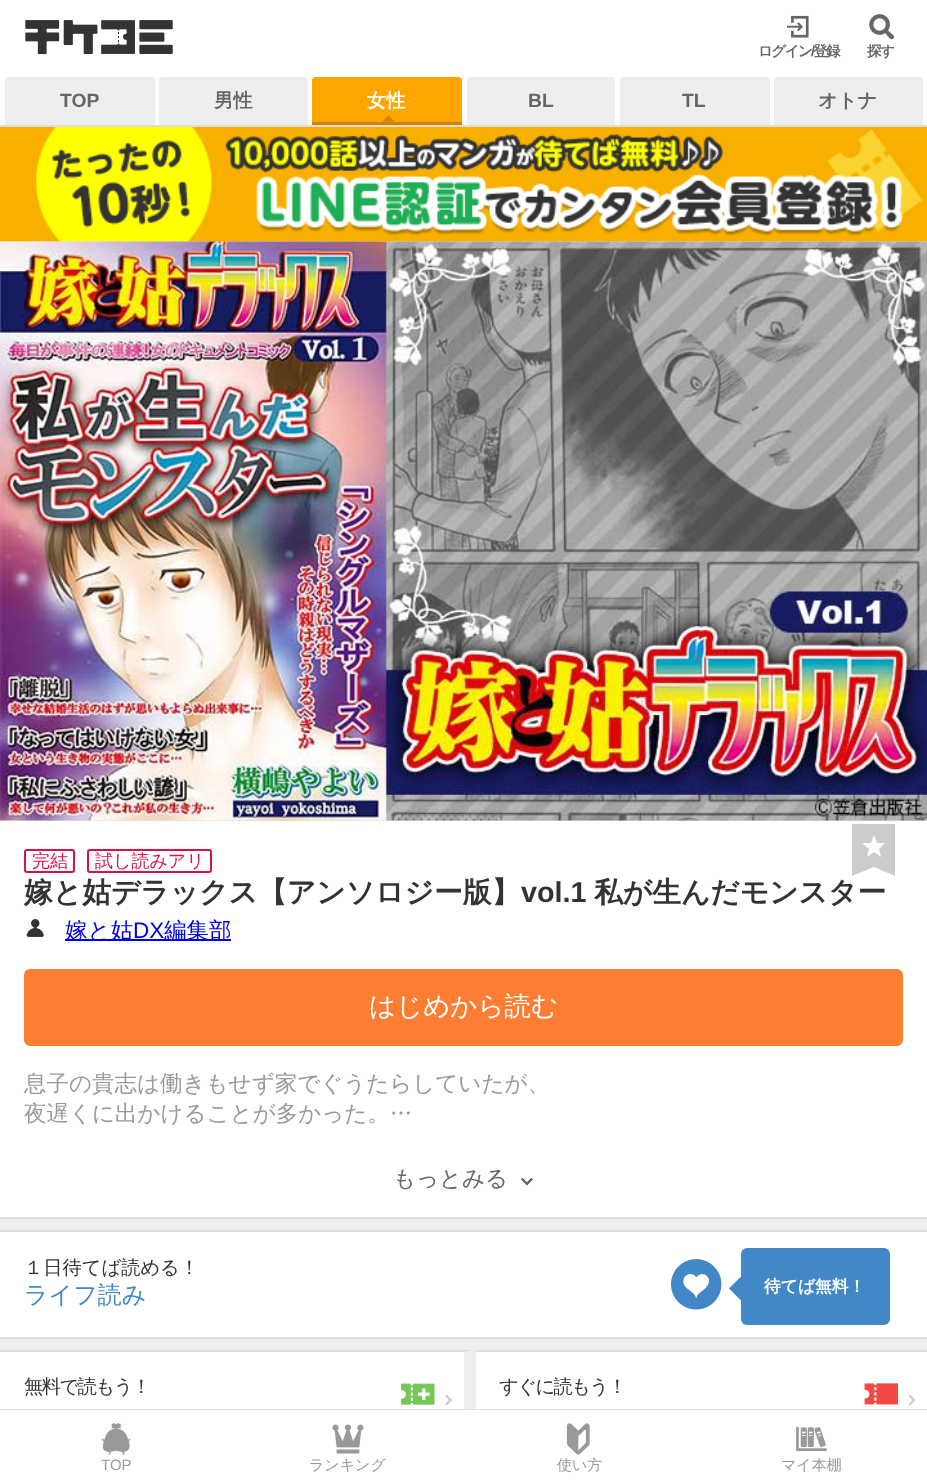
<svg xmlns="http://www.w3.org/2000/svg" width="927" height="1482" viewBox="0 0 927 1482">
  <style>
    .t1 { font: bold 14.5px WenQuanYi Zen Hei; letter-spacing: -1.5px; fill: #666; }
    .t2 { font: bold 14.5px Liberation Sans; letter-spacing: -1.5px; fill: #666; }
    .t3 { font: bold 19.25px Liberation Sans; fill: #666; }
    .t4 { font: bold 19.25px WenQuanYi Zen Hei; fill: #666; }
    .t5 { font: bold 19.25px WenQuanYi Zen Hei; fill: #fff; }
    .t6 { font: 500 18px WenQuanYi Zen Hei; fill: #d71345; }
    .t7 { font: bold 28.75px WenQuanYi Zen Hei; fill: #333; }
    .t8 { font: bold 28.75px Liberation Sans; fill: #333; }
    .t9 { font: 500 22.5px WenQuanYi Zen Hei; fill: #00e; }
    .t10 { font: 22.5px Liberation Sans; fill: #00e; }
    .t11 { font: 500 26.5px WenQuanYi Zen Hei; fill: #fff; }
    .t12 { font: 500 22.5px WenQuanYi Zen Hei; fill: #999; }
    .t13 { font: 500 22.5px WenQuanYi Zen Hei; fill: #666; }
    .t14 { font: 500 19.25px WenQuanYi Zen Hei; fill: #333; }
    .t15 { font: 500 24px WenQuanYi Zen Hei; fill: #4288c6; }
    .t16 { font: bold 16.75px WenQuanYi Zen Hei; fill: #fff; }
    .t17 { font: 500 19.25px WenQuanYi Zen Hei; letter-spacing: -1.5px; fill: #333; }
    .t18 { font: 15px Liberation Sans; fill: #999; }
    .t19 { font: 500 15px WenQuanYi Zen Hei; fill: #999; }
  </style>
  <rect width="100%" height="100%" fill="#eee"/>
  <rect x="0" y="0" width="927" height="125" fill="#fff"/>
  <image x="25" y="20" width="148" height="35" href="images/1.png"/>
  <image x="787" y="15" width="22" height="23" href="images/2.png"/>
  <text x="758" y="56" class="t1">ログイン</text>
  <text x="811" y="56" class="t2">/</text>
  <text x="813" y="56" class="t1">登録</text>
  <image x="869" y="14" width="25" height="26" href="images/3.png"/>
  <text x="867" y="56" class="t1">探す</text>
  <rect x="0" y="125" width="927" height="2" fill="#ddd"/>
  <path d="M8 77H152C153.5 77 155 78.5 155 80V122H5V80C5 78.5 6.5 77 8 77Z" fill="#eee"/>
  <rect x="5" y="122" width="150" height="3" fill="#eee"/>
  <text x="60" y="107" class="t3">TOP</text>
  <path d="M162 77H305C306.5 77 308 78.5 308 80V122H159V80C159 78.5 160.5 77 162 77Z" fill="#eee"/>
  <rect x="159" y="122" width="149" height="3" fill="#eee"/>
  <text x="214" y="107" class="t4">男性</text>
  <path d="M315 77H459C460.5 77 462 78.5 462 80V122H312V80C312 78.5 313.5 77 315 77Z" fill="#ffa500"/>
  <rect x="312" y="122" width="150" height="3" fill="#cc8400"/>
  <text x="367" y="107" class="t5">女性</text>
  <path d="M394.5 121.5H382.5L388.5 115.5Z" fill="#cc8400"/>
  <path d="M470 77H612C613.5 77 615 78.5 615 80V122H467V80C467 78.5 468.5 77 470 77Z" fill="#eee"/>
  <rect x="467" y="122" width="148" height="3" fill="#eee"/>
  <text x="528" y="107" class="t3">BL</text>
  <path d="M623 77H767C768.5 77 770 78.5 770 80V122H620V80C620 78.5 621.5 77 623 77Z" fill="#eee"/>
  <rect x="620" y="122" width="150" height="3" fill="#eee"/>
  <text x="682" y="107" class="t3">TL</text>
  <path d="M777 77H920C921.5 77 923 78.5 923 80V122H774V80C774 78.5 775.5 77 777 77Z" fill="#eee"/>
  <rect x="774" y="122" width="149" height="3" fill="#eee"/>
  <text x="818" y="107" class="t4">オトナ</text>
  <image x="0" y="127" width="927" height="115" href="images/4.png"/>
  <rect x="0" y="820" width="927" height="1" fill="#e1e1e1"/>
  <image x="0" y="241" width="927" height="580" href="images/5.png"/>
  <rect x="0" y="821" width="927" height="396" fill="#fff"/>
  <rect x="25" y="850" width="49" height="22" rx="2" fill="none" stroke="#d71345" stroke-width="2"/>
  <text x="32" y="867" class="t6">完結</text>
  <rect x="88" y="850" width="123" height="22" rx="2" fill="none" stroke="#d71345" stroke-width="2"/>
  <text x="95" y="867" class="t6">試し読みアリ</text>
  <path d="M852 824V876L874 867L895 876V824ZM881 857L874 852L867 857L869 849L862 843H871L874 835L877 843H885L879 849Z" fill="#ccc"/>
  <text x="24" y="902" class="t7">嫁と姑デラックス【アンソロジー版】</text>
  <text x="521" y="902" class="t8">vol.1</text>
  <text x="594" y="902" class="t7">私が生んだモンスター</text>
  <image x="26" y="919" width="18" height="18" href="images/6.png"/>
  <rect x="65" y="939" width="166" height="2" fill="#00e"/>
  <text x="65" y="938" class="t9">嫁と姑</text>
  <text x="133" y="938" class="t10">DX</text>
  <text x="164" y="938" class="t9">編集部</text>
  <rect x="25.5" y="970.5" width="876" height="74" rx="4.5" fill="#fd7d33" stroke="#fd7d33" stroke-width="3"/>
  <text x="369" y="1015" class="t11">はじめから読む</text>
  <text x="24" y="1091" class="t12">息子の貴志は働きもせず家でぐうたらしていたが、</text>
  <text x="24" y="1121" class="t12">夜遅くに出かけることが多かった。…</text>
  <text x="393" y="1186" class="t13">もっとみる</text>
  <image x="521" y="1177" width="12" height="9" href="images/7.png"/>
  <rect x="0" y="1217" width="927" height="2" fill="#ddd"/>
  <rect x="0" y="1232" width="927" height="105" fill="#fff"/>
  <rect x="0" y="1230" width="927" height="2" fill="#ddd"/>
  <rect x="0" y="1337" width="927" height="2" fill="#ddd"/>
  <text x="24" y="1274" class="t14">１日待てば読める！</text>
  <text x="24" y="1303" class="t15">ライフ読み</text>
  <image x="671" y="1259" width="51" height="51" href="images/8.png"/>
  <rect x="741" y="1248" width="149" height="77" rx="6" fill="#4288c6"/>
  <path d="M741 1276.5V1300.5L729 1288.5Z" fill="#4288c6"/>
  <text x="764" y="1292" class="t16">待てば無料！</text>
  <rect x="0" y="1352" width="464" height="57" fill="#fff"/>
  <path d="M0 1350H476L464 1352H0Z" fill="#ddd"/>
  <path d="M476 1350V1466L464 1464V1352Z" fill="#eee"/>
  <text x="24" y="1393" class="t17">無料で読もう！</text>
  <image x="401" y="1383" width="34" height="22" href="images/9.png"/>
  <image x="445" y="1394" width="7" height="12" href="images/10.png"/>
  <rect x="476" y="1352" width="451" height="57" fill="#fff"/>
  <rect x="476" y="1350" width="451" height="2" fill="#ddd"/>
  <text x="499" y="1393" class="t17">すぐに読もう！</text>
  <image x="864" y="1383" width="34" height="22" href="images/11.png"/>
  <image x="908" y="1394" width="8" height="12" href="images/12.png"/>
  <rect x="0" y="1409" width="927" height="1" fill="#ddd"/>
  <rect x="0" y="1410" width="927" height="72" fill="#fff"/>
  <image x="101" y="1423" width="30" height="32" href="images/13.png"/>
  <text x="101" y="1470" class="t18">TOP</text>
  <image x="332" y="1424" width="32" height="30" href="images/14.png"/>
  <text x="309" y="1470" class="t19">ランキング</text>
  <image x="566" y="1423" width="24" height="32" href="images/15.png"/>
  <text x="557" y="1470" class="t19">使い方</text>
  <image x="796" y="1426" width="31" height="26" href="images/16.png"/>
  <text x="781" y="1470" class="t19">マイ本棚</text>
</svg>
